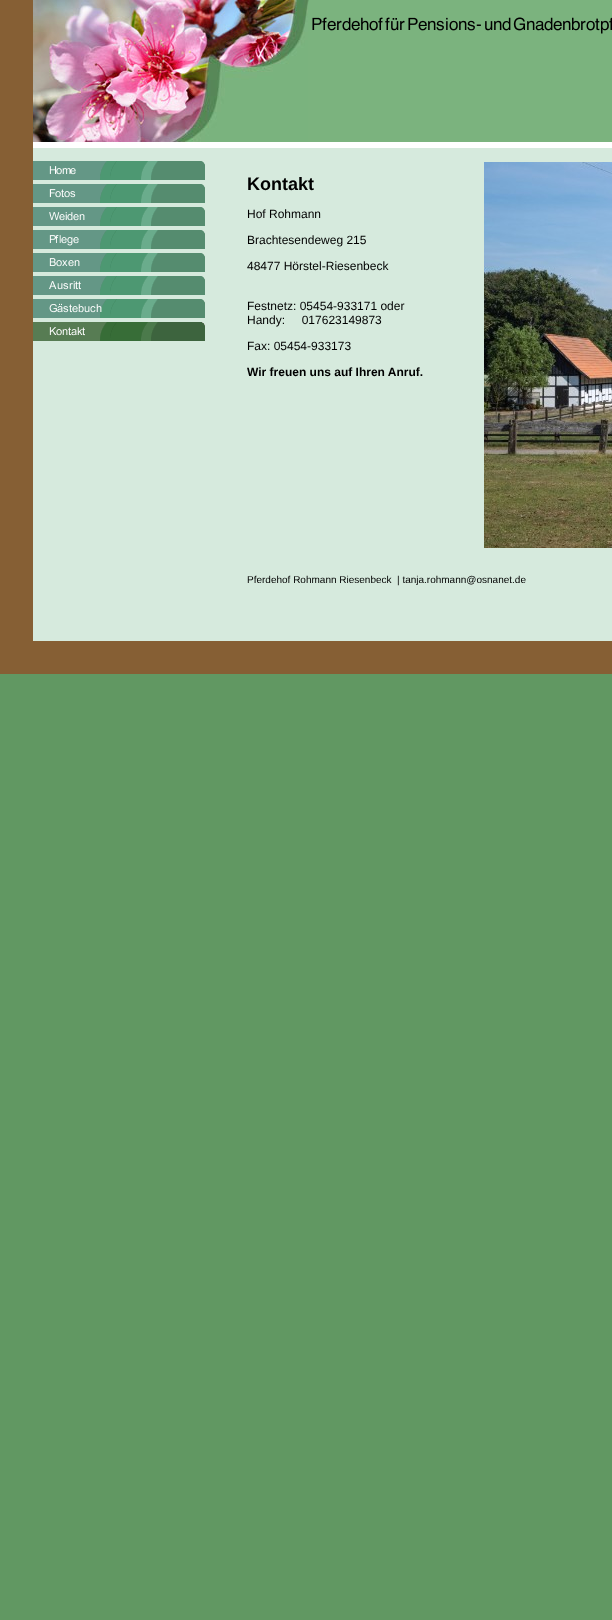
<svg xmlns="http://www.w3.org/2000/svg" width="612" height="1620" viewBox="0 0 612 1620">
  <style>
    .t1 { font: bold 18px Liberation Sans; fill: #000; }
    .t2 { font: 12px Liberation Sans; fill: #000; }
    .t3 { font: bold 12px Liberation Sans; fill: #000; }
    .t4 { font: 10px Liberation Sans; fill: #000; }
  </style>
  <rect width="100%" height="100%" fill="#619862"/>
  <rect x="33" y="641" width="579" height="33" fill="#865f34"/>
  <rect x="0" y="0" width="33" height="674" fill="#865f34"/>
  <rect x="33" y="148" width="579" height="493" fill="#d6eadd"/>
  <rect x="308" y="34" width="304" height="108" fill="#7bb37e"/>
  <image x="33" y="0" width="275" height="142" href="images/1.png"/>
  <image x="308" y="0" width="304" height="34" href="images/2.png"/>
  <rect x="33" y="142" width="579" height="6" fill="#fff"/>
  <image x="33" y="161" width="172" height="19" href="images/3.png"/>
  <image x="33" y="184" width="172" height="19" href="images/4.png"/>
  <image x="33" y="207" width="172" height="19" href="images/5.png"/>
  <image x="33" y="230" width="172" height="19" href="images/6.png"/>
  <image x="33" y="253" width="172" height="19" href="images/7.png"/>
  <image x="33" y="276" width="172" height="19" href="images/8.png"/>
  <image x="33" y="299" width="172" height="19" href="images/9.png"/>
  <image x="33" y="322" width="172" height="19" href="images/10.png"/>
  <text x="247" y="190" class="t1">Kontakt</text>
  <text x="247" y="218" class="t2">Hof Rohmann</text>
  <text x="247" y="244" class="t2">Brachtesendeweg 215</text>
  <text x="247" y="270" class="t2">48477 Hörstel-Riesenbeck</text>
  <text x="247" y="310" class="t2">Festnetz: 05454-933171 oder</text>
  <text x="247" y="324" class="t2" xml:space="preserve">Handy:     017623149873</text>
  <text x="247" y="350" class="t2">Fax: 05454-933173</text>
  <text x="247" y="376" class="t3">Wir freuen uns auf Ihren Anruf.</text>
  <image x="484" y="162" width="128" height="386" href="images/11.png"/>
  <text x="247" y="583" class="t4">Pferdehof Rohmann Riesenbeck</text>
  <text x="397" y="583" class="t4">| tanja.rohmann@osnanet.de</text>
</svg>
